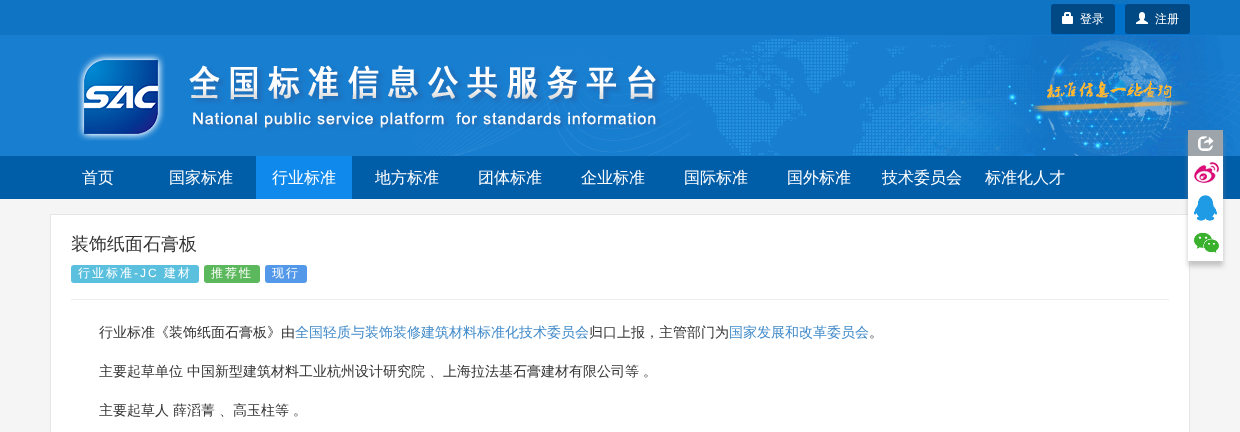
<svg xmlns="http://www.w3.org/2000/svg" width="1240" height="432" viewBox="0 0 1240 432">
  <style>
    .t1 { font: 500 12px WenQuanYi Zen Hei; fill: #fff; }
    .t2 { font: 500 16px WenQuanYi Zen Hei; fill: #fff; }
    .t3 { font: 500 18px WenQuanYi Zen Hei; fill: #333; }
    .t4 { font: 500 12px WenQuanYi Zen Hei; letter-spacing: 2px; fill: #fff; }
    .t5 { font: 12px Liberation Sans; letter-spacing: 2px; fill: #fff; }
    .t6 { font: 500 14px WenQuanYi Zen Hei; fill: #333; }
    .t7 { font: 500 14px WenQuanYi Zen Hei; fill: #428bca; }
  </style>
  <rect width="100%" height="100%" fill="#f5f5f5"/>
  <rect x="0" y="35" width="413" height="121" fill="#187ed0"/>
  <rect x="0" y="0" width="1240" height="35" fill="#1074c4"/>
  <path d="M1054 4H1187C1188.5 4 1190 5.5 1190 7V35H1051V7C1051 5.5 1052.5 4 1054 4Z" fill="#0071cb"/>
  <rect x="1051" y="4" width="64" height="30" rx="3" fill="#004984"/>
  <image x="1062" y="12" width="11" height="12" href="images/1.png"/>
  <text x="1080" y="23" class="t1">登录</text>
  <rect x="1125" y="4" width="65" height="30" rx="3" fill="#004984"/>
  <image x="1136" y="12" width="12" height="12" href="images/2.png"/>
  <text x="1155" y="23" class="t1">注册</text>
  <image x="413" y="35" width="827" height="121" href="images/4.png"/>
  <image x="77" y="53" width="584" height="88" href="images/3.png"/>
  <rect x="0" y="156" width="1240" height="43" fill="#005da8"/>
  <text x="82" y="183" class="t2">首页</text>
  <text x="169" y="183" class="t2">国家标准</text>
  <rect x="256" y="156" width="96" height="43" fill="#0f89eb"/>
  <text x="272" y="183" class="t2">行业标准</text>
  <text x="375" y="183" class="t2">地方标准</text>
  <text x="478" y="183" class="t2">团体标准</text>
  <text x="581" y="183" class="t2">企业标准</text>
  <text x="684" y="183" class="t2">国际标准</text>
  <text x="787" y="183" class="t2">国外标准</text>
  <text x="882" y="183" class="t2">技术委员会</text>
  <text x="985" y="183" class="t2">标准化人才</text>
  <rect x="50.5" y="214.5" width="1139" height="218" fill="#fff" stroke="#e5e5e5"/>
  <rect x="1188" y="135" width="35" height="131" fill="#92929280" filter="blur(2.5px)"/>
  <rect x="1188" y="130" width="35" height="26" fill="#9da5ab"/>
  <image x="1198" y="136" width="16" height="15" href="images/5.png"/>
  <rect x="1188" y="156" width="35" height="105" fill="#fff"/>
  <image x="1194" y="162" width="25" height="21" href="images/6.png"/>
  <image x="1194" y="195" width="23" height="26" href="images/7.png"/>
  <image x="1194" y="232" width="25" height="21" href="images/8.png"/>
  <rect x="71" y="299" width="1098" height="1" fill="#eee"/>
  <text x="71" y="250" class="t3">装饰纸面石膏板</text>
  <rect x="71" y="265" width="128" height="18" rx="3" fill="#5bc0de"/>
  <text x="78" y="277" class="t4">行业标准</text>
  <text x="134" y="277" class="t5">-JC</text>
  <text x="164" y="277" class="t4">建材</text>
  <rect x="204" y="265" width="56" height="18" rx="3" fill="#5cb85c"/>
  <text x="211" y="277" class="t4">推荐性</text>
  <rect x="265" y="265" width="42" height="18" rx="3" fill="#5499e9"/>
  <text x="272" y="277" class="t4">现行</text>
  <text x="99" y="337" class="t6">行业标准《装饰纸面石膏板》由</text>
  <text x="295" y="337" class="t7">全国轻质与装饰装修建筑材料标准化技术委员会</text>
  <text x="589" y="337" class="t6">归口上报，主管部门为</text>
  <text x="729" y="337" class="t7">国家发展和改革委员会</text>
  <text x="869" y="337" class="t6">。</text>
  <text x="99" y="376" class="t6">主要起草单位</text>
  <text x="187" y="376" class="t6">中国新型建筑材料工业杭州设计研究院</text>
  <text x="429" y="376" class="t6">、上海拉法基石膏建材有限公司等</text>
  <text x="643" y="376" class="t6">。</text>
  <text x="99" y="415" class="t6">主要起草人</text>
  <text x="173" y="415" class="t6">薛滔菁</text>
  <text x="219" y="415" class="t6">、高玉柱等</text>
  <text x="293" y="415" class="t6">。</text>
</svg>
